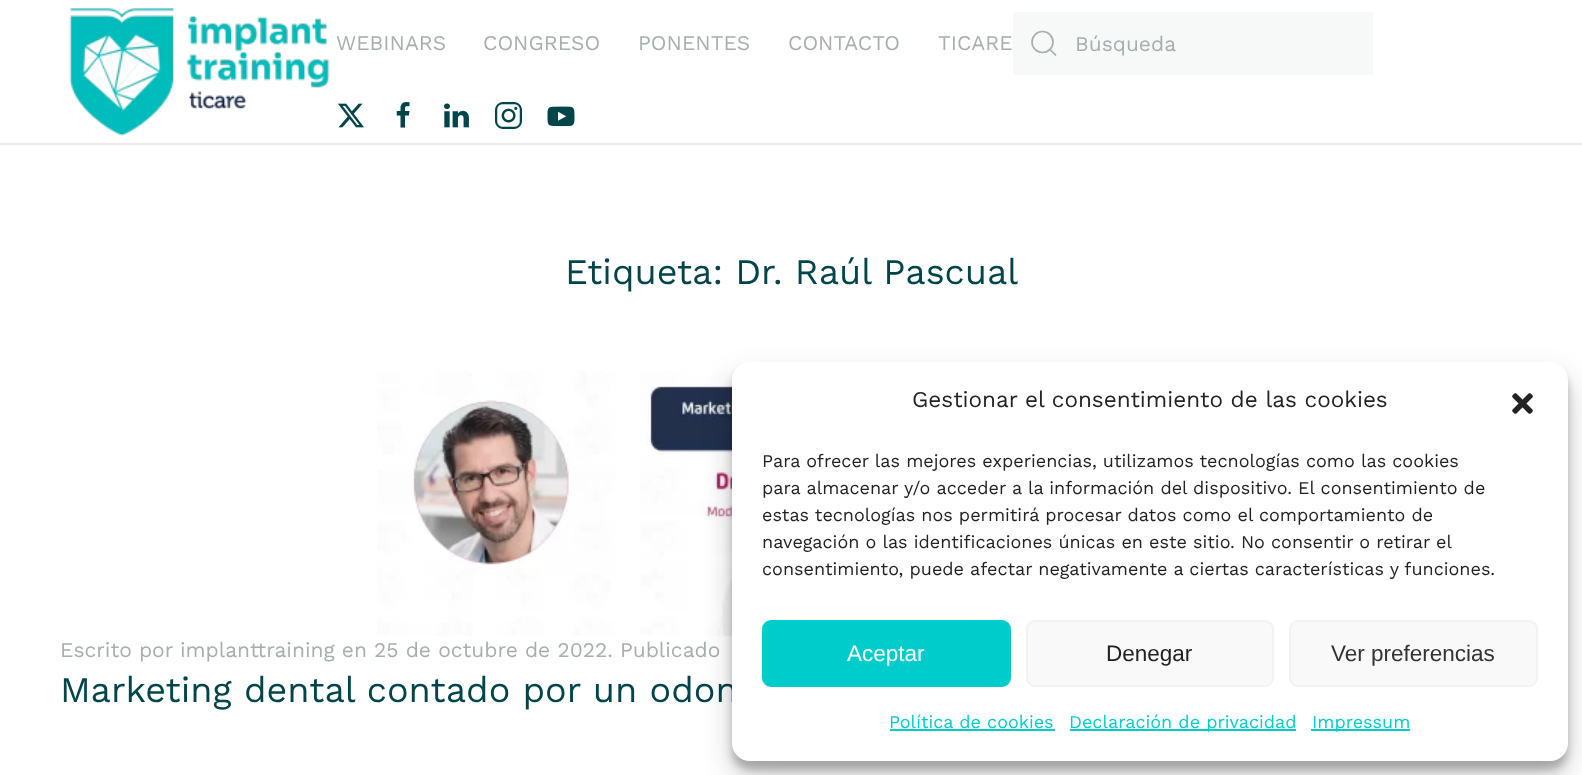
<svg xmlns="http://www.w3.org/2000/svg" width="1582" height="775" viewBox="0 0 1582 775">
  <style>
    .t1 { font: 21px Work Sans; fill: #a7aeae; }
    .t2 { font: 36px Work Sans; fill: #01454a; }
    .t3 { font: 22.5px Work Sans; fill: #222; }
    .t4 { font: 18px Work Sans; fill: #222; }
    .t5 { font: 22.5px Liberation Sans; fill: #fff; }
    .t6 { font: 22.5px Liberation Sans; fill: #222; }
    .t7 { font: 22.5px Liberation Sans; fill: #333; }
    .t8 { font: 18px Work Sans; fill: #0cc; }
  </style>
  <rect width="100%" height="100%" fill="#fff"/>
  <rect x="0" y="143" width="1582" height="2" fill="#eaeaea"/>
  <image x="69" y="8" width="261" height="128" href="images/1.png"/>
  <text x="336" y="50" class="t1">WEBINARS</text>
  <text x="483" y="50" class="t1">CONGRESO</text>
  <text x="638" y="50" class="t1">PONENTES</text>
  <text x="788" y="50" class="t1">CONTACTO</text>
  <text x="938" y="50" class="t1">TICARE</text>
  <rect x="1013" y="12" width="360" height="63" fill="#f7f8f8"/>
  <circle cx="1042.5" cy="42" r="10.5" fill="none" stroke="#a7aeae" stroke-width="1.7"/>
  <path d="M1050 49.5L1056 55.5Z" fill="none" stroke="#a7aeae" stroke-width="1.7"/>
  <text x="1075" y="51" class="t1">Búsqueda</text>
  <image x="338" y="103" width="26" height="25" href="images/2.png"/>
  <image x="396" y="102" width="14" height="26" href="images/3.png"/>
  <image x="444" y="103" width="25" height="25" href="images/4.png"/>
  <image x="495" y="102" width="27" height="27" href="images/5.png"/>
  <image x="547" y="106" width="28" height="21" href="images/6.png"/>
  <text x="565" y="284" class="t2">Etiqueta: Dr. Raúl Pascual</text>
  <image x="377" y="370" width="358" height="266" href="images/7.png"/>
  <text x="60" y="657" class="t1">Escrito por implanttraining en 25 de octubre de 2022. Publicado</text>
  <text x="60" y="702" class="t2">Marketing dental contado por un odon</text>
  <rect x="732" y="371" width="836" height="399" rx="18" fill="#0000003b" filter="blur(4.5px)"/>
  <rect x="732" y="377" width="836" height="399" rx="18" fill="#00000030" filter="blur(15px)"/>
  <rect x="732" y="362" width="836" height="399" rx="18" fill="#fff"/>
  <text x="912" y="407" class="t3">Gestionar el consentimiento de las cookies</text>
  <image x="1512" y="393" width="21" height="21" href="images/8.png"/>
  <text x="762" y="467" class="t4">Para ofrecer las mejores experiencias, utilizamos tecnologías como las cookies</text>
  <text x="762" y="494" class="t4">para almacenar y/o acceder a la información del dispositivo. El consentimiento de</text>
  <text x="762" y="521" class="t4">estas tecnologías nos permitirá procesar datos como el comportamiento de</text>
  <text x="762" y="548" class="t4">navegación o las identificaciones únicas en este sitio. No consentir o retirar el</text>
  <text x="762" y="575" class="t4">consentimiento, puede afectar negativamente a ciertas características y funciones.</text>
  <rect x="763" y="621" width="247" height="65" rx="8" fill="#0cc" stroke="#0cc" stroke-width="2"/>
  <text x="847" y="661" class="t5">Aceptar</text>
  <rect x="1027" y="621" width="246" height="65" rx="8" fill="#f9f9f9" stroke="#f2f2f2" stroke-width="2"/>
  <text x="1106" y="661" class="t6">Denegar</text>
  <rect x="1290" y="621" width="247" height="65" rx="8" fill="#f9f9f9" stroke="#f2f2f2" stroke-width="2"/>
  <text x="1331" y="661" class="t7">Ver preferencias</text>
  <text x="889" y="728" class="t8">Política de cookies</text>
  <rect x="890" y="729" width="165" height="2" fill="#0cc"/>
  <rect x="1070" y="729" width="226" height="2" fill="#0cc"/>
  <text x="1069" y="728" class="t8">Declaración de privacidad</text>
  <rect x="1311" y="729" width="99" height="2" fill="#0cc"/>
  <text x="1312" y="728" class="t8">Impressum</text>
</svg>
